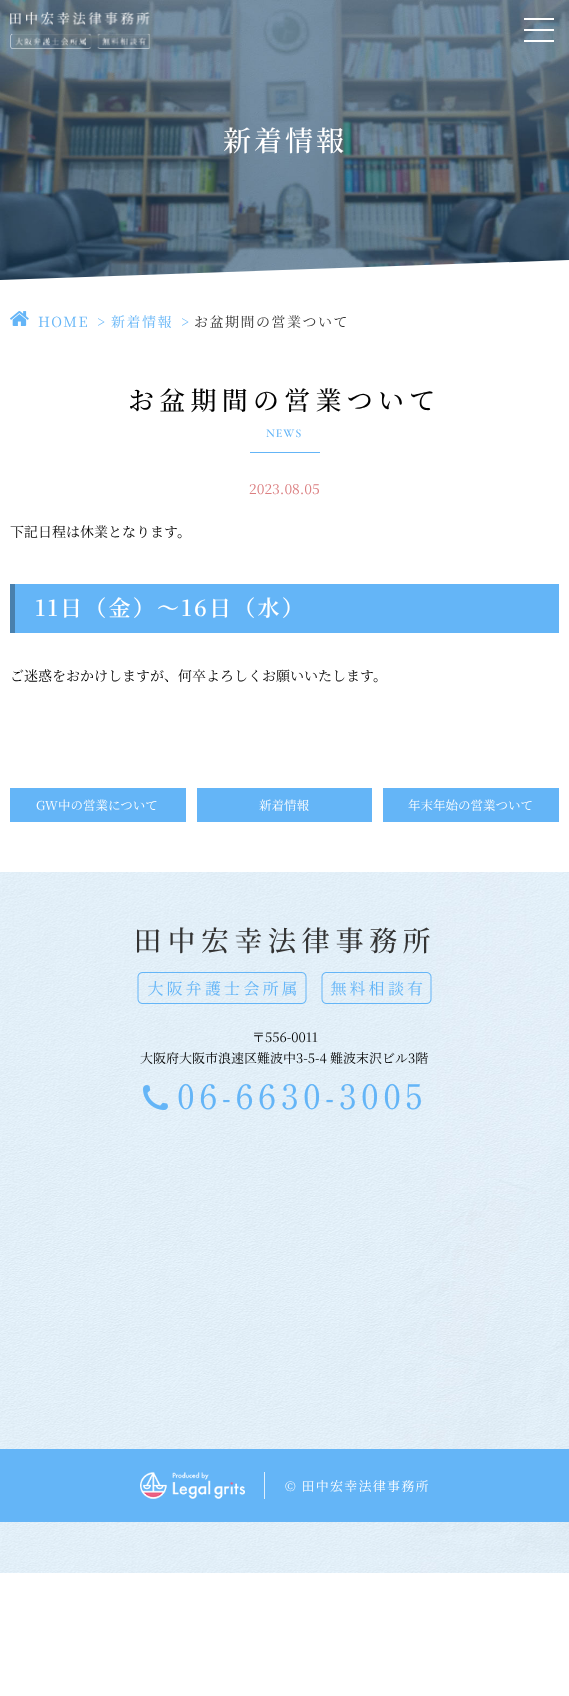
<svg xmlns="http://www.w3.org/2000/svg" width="569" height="1696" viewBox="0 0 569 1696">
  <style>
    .t1 { font: 500 28px Noto Serif JP; letter-spacing: 3px; fill: #fff; }
    .t2 { font: 14px Noto Serif JP; letter-spacing: 1.5px; fill: #64b5f7; }
    .t3 { font: 14px Noto Serif JP; letter-spacing: -2px; fill: #64b5f7; }
    .t4 { font: 14px Noto Serif JP; letter-spacing: 1.5px; fill: #333; }
    .t5 { font: 500 26px Noto Serif JP; letter-spacing: 5.25px; fill: #000; }
    .t6 { font: 600 12px Cormorant Garamond; letter-spacing: 1px; fill: #64b5f7; }
    .t7 { font: 14px Noto Serif JP; fill: #db7e80; }
    .t8 { font: 14px Noto Serif JP; fill: #000; }
    .t9 { font: 600 22px Noto Serif JP; letter-spacing: 2.25px; fill: #fff; }
    .t10 { font: 12.5px Noto Serif JP; fill: #fff; }
    .t11 { font: 13px Noto Serif JP; fill: #000; }
    .t12 { font: 34px Shippori Mincho; letter-spacing: 4.5px; fill: #64b5f7; }
    .t13 { font: 13px Noto Serif JP; letter-spacing: 1.25px; fill: #fff; }
  </style>
  <defs>
    <clipPath id="clip1"><rect x="0" y="0" width="569" height="280"/></clipPath>
  </defs>
  <rect width="100%" height="100%" fill="#fff"/>
  <image x="0" y="0" width="569" height="280" href="images/2.png"/>
  <image x="10" y="12" width="140" height="37" href="images/1.png"/>
  <rect x="524" y="18" width="30" height="2" fill="#fff"/>
  <rect x="524" y="29" width="30" height="2" fill="#fff"/>
  <rect x="524" y="40" width="30" height="2" fill="#fff"/>
  <text x="223" y="151" class="t1">新着情報</text>
  <g clip-path="url(#clip1)">
    <path d="M0 280L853 250L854 280L1 310Z" fill="#fff"/>
  </g>
  <image x="10" y="311" width="19" height="15" href="images/3.png"/>
  <text x="38" y="327" class="t2">HOME</text>
  <text x="97" y="327" class="t3">&gt;</text>
  <text x="111" y="327" class="t2">新着情報</text>
  <text x="181" y="327" class="t3">&gt;</text>
  <text x="194" y="327" class="t4">お盆期間の営業ついて</text>
  <text x="128" y="410" class="t5">お盆期間の営業ついて</text>
  <text x="266" y="437" class="t6">NEWS</text>
  <rect x="250" y="452" width="70" height="1" fill="#64b5f7"/>
  <text x="249" y="494" class="t7">2023.08.05</text>
  <text x="10" y="537" class="t8">下記日程は休業となります。</text>
  <rect x="15" y="584" width="544" height="49" fill="#64b5f7"/>
  <rect x="10" y="584" width="5" height="49" fill="#4980ad"/>
  <text x="35" y="616" class="t9">11日（金）〜16日（水）</text>
  <text x="10" y="681" class="t8">ご迷惑をおかけしますが、何卒よろしくお願いいたします。</text>
  <rect x="10" y="788" width="176" height="34" fill="#64b5f7"/>
  <text x="36" y="810" class="t10">GW中の営業について</text>
  <rect x="197" y="788" width="175" height="34" fill="#64b5f7"/>
  <text x="259" y="810" class="t10">新着情報</text>
  <rect x="383" y="788" width="176" height="34" fill="#64b5f7"/>
  <text x="408" y="810" class="t10">年末年始の営業ついて</text>
  <image x="0" y="872" width="569" height="701" href="images/4.png"/>
  <image x="137" y="927" width="295" height="77" href="images/5.png"/>
  <text x="252" y="1042" class="t11">〒556-0011</text>
  <text x="140" y="1063" class="t11">大阪府大阪市浪速区難波中3-5-4 難波末沢ビル3階</text>
  <image x="143" y="1085" width="25" height="25" href="images/6.png"/>
  <text x="177" y="1109" class="t12">06-6630-3005</text>
  <rect x="0" y="1449" width="569" height="73" fill="#64b5f7"/>
  <image x="140" y="1472" width="105" height="27" href="images/7.png"/>
  <rect x="264" y="1472" width="1" height="27" fill="#e0f0fd"/>
  <text x="285" y="1491" class="t13">© 田中宏幸法律事務所</text>
</svg>
